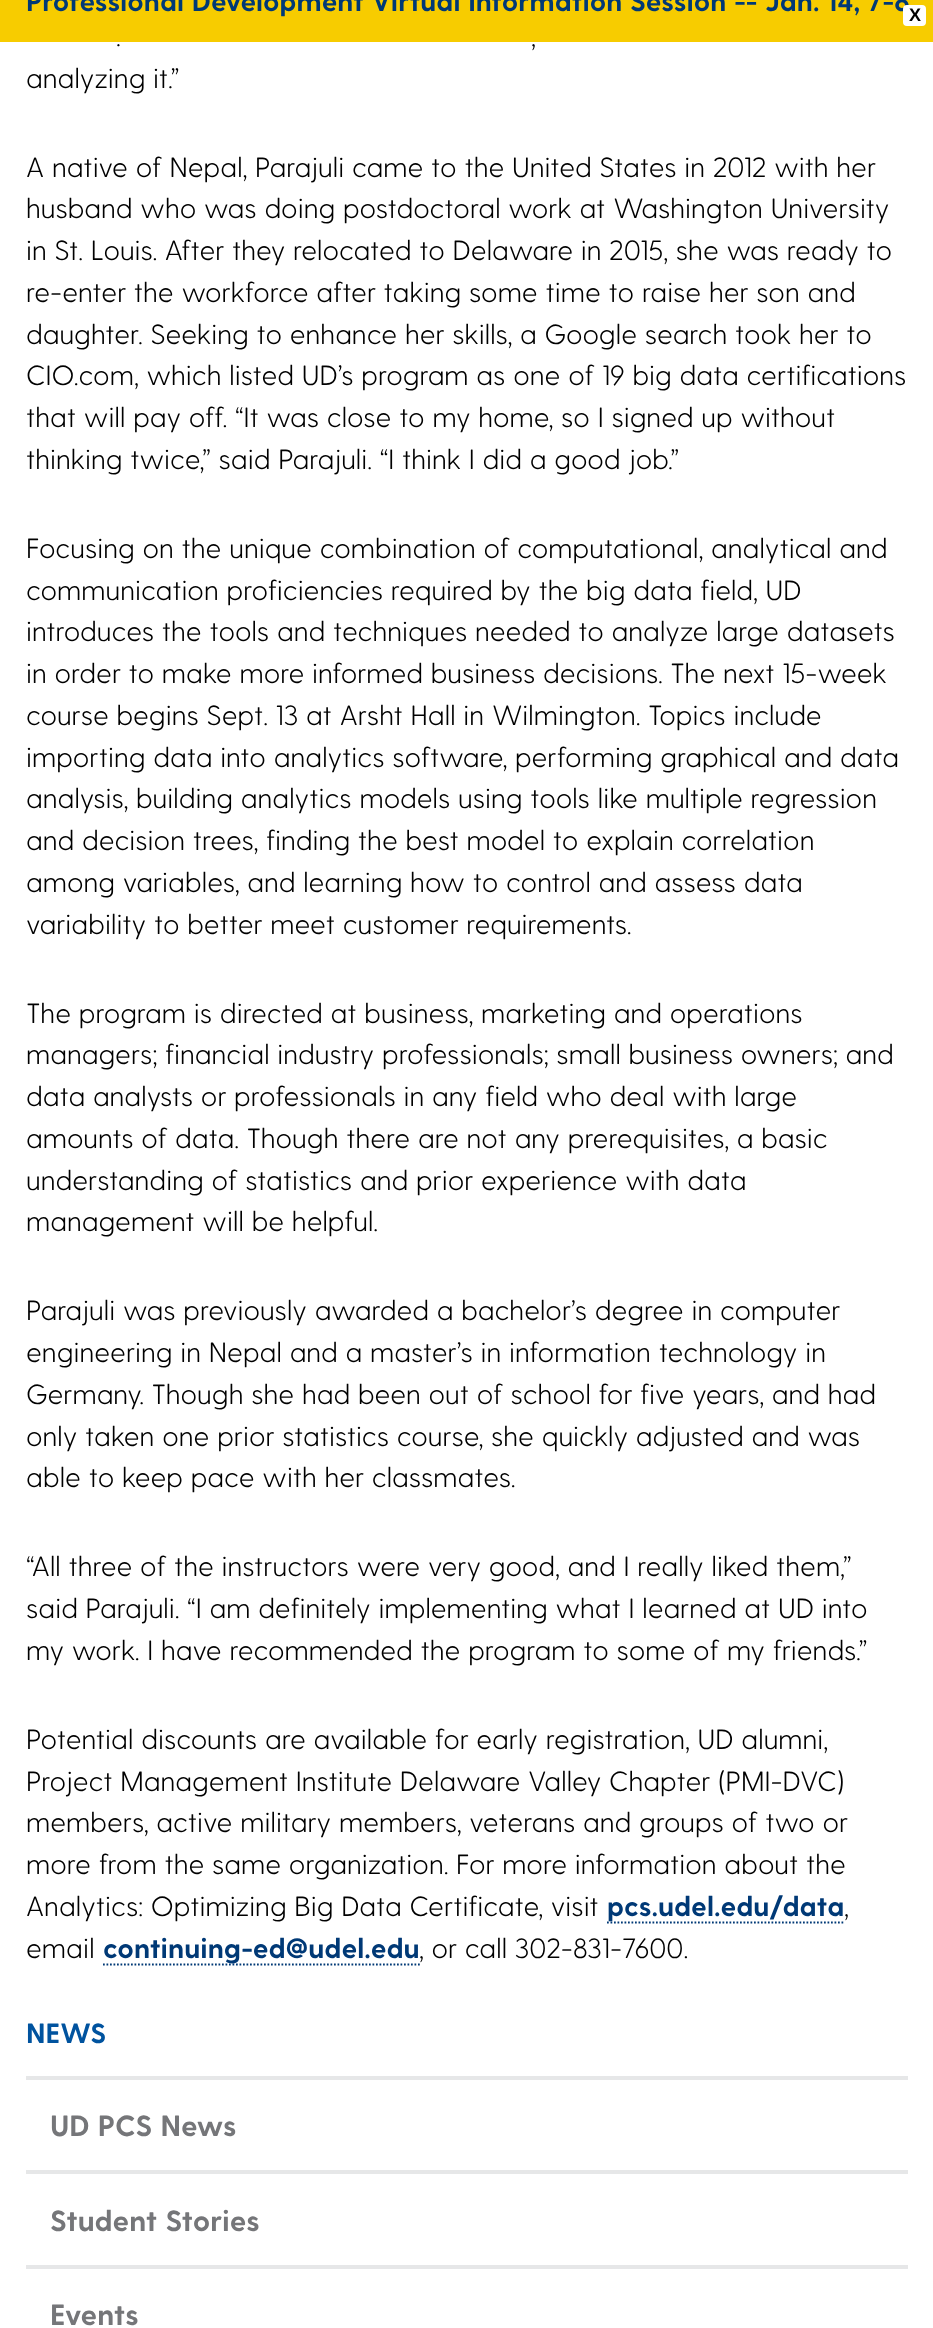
<svg xmlns="http://www.w3.org/2000/svg" width="933" height="2328" viewBox="0 0 933 2328">
  <style>
    .t1 { font: bold 27.55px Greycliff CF; fill: #003976; }
    .t2 { font: bold 18px Liberation Sans; fill: #000; }
    .t3 { font: 300 27.8px Greycliff CF; fill: #000; }
    .t4 { font: bold 27.8px Greycliff CF; fill: #003976; }
    .t5 { font: bold 27.8px Greycliff CF; fill: #00539f; }
    .t6 { font: bold 29.25px Greycliff CF; fill: #757679; }
  </style>
  <rect width="100%" height="100%" fill="#fff"/>
  <rect x="0" y="0" width="933" height="42" fill="#f7cc00"/>
  <text x="26" y="11" class="t1">Professional Development Virtual Information Session -- Jan. 14, 7-8</text>
  <rect x="904" y="6" width="21" height="19" rx="3" fill="#fff" stroke="#fff" stroke-width="2"/>
  <text x="909" y="21" class="t2">X</text>
  <text x="116" y="46" class="t3">.</text>
  <text x="531" y="46" class="t3">,</text>
  <text x="26" y="88" class="t3">analyzing it.”</text>
  <text x="26" y="177" class="t3">A native of Nepal, Parajuli came to the United States in 2012 with her</text>
  <text x="26" y="218" class="t3">husband who was doing postdoctoral work at Washington University</text>
  <text x="26" y="260" class="t3">in St. Louis. After they relocated to Delaware in 2015, she was ready to</text>
  <text x="26" y="302" class="t3">re-enter the workforce after taking some time to raise her son and</text>
  <text x="26" y="344" class="t3">daughter. Seeking to enhance her skills, a Google search took her to</text>
  <text x="26" y="385" class="t3">CIO.com, which listed UD’s program as one of 19 big data certifications</text>
  <text x="26" y="427" class="t3">that will pay off. “It was close to my home, so I signed up without</text>
  <text x="26" y="469" class="t3">thinking twice,” said Parajuli. “I think I did a good job.”</text>
  <text x="26" y="558" class="t3">Focusing on the unique combination of computational, analytical and</text>
  <text x="26" y="600" class="t3">communication proficiencies required by the big data field, UD</text>
  <text x="26" y="641" class="t3">introduces the tools and techniques needed to analyze large datasets</text>
  <text x="26" y="683" class="t3">in order to make more informed business decisions. The next 15-week</text>
  <text x="26" y="725" class="t3">course begins Sept. 13 at Arsht Hall in Wilmington. Topics include</text>
  <text x="26" y="767" class="t3">importing data into analytics software, performing graphical and data</text>
  <text x="26" y="808" class="t3">analysis, building analytics models using tools like multiple regression</text>
  <text x="26" y="850" class="t3">and decision trees, finding the best model to explain correlation</text>
  <text x="26" y="892" class="t3">among variables, and learning how to control and assess data</text>
  <text x="26" y="934" class="t3">variability to better meet customer requirements.</text>
  <text x="26" y="1023" class="t3">The program is directed at business, marketing and operations</text>
  <text x="26" y="1064" class="t3">managers; financial industry professionals; small business owners; and</text>
  <text x="26" y="1106" class="t3">data analysts or professionals in any field who deal with large</text>
  <text x="26" y="1148" class="t3">amounts of data. Though there are not any prerequisites, a basic</text>
  <text x="26" y="1190" class="t3">understanding of statistics and prior experience with data</text>
  <text x="26" y="1231" class="t3">management will be helpful.</text>
  <text x="26" y="1320" class="t3">Parajuli was previously awarded a bachelor’s degree in computer</text>
  <text x="26" y="1362" class="t3">engineering in Nepal and a master’s in information technology in</text>
  <text x="26" y="1404" class="t3">Germany. Though she had been out of school for five years, and had</text>
  <text x="26" y="1446" class="t3">only taken one prior statistics course, she quickly adjusted and was</text>
  <text x="26" y="1487" class="t3">able to keep pace with her classmates.</text>
  <text x="26" y="1576" class="t3">“All three of the instructors were very good, and I really liked them,”</text>
  <text x="26" y="1618" class="t3">said Parajuli. “I am definitely implementing what I learned at UD into</text>
  <text x="26" y="1660" class="t3">my work. I have recommended the program to some of my friends.”</text>
  <text x="26" y="1749" class="t3">Potential discounts are available for early registration, UD alumni,</text>
  <text x="26" y="1791" class="t3">Project Management Institute Delaware Valley Chapter (PMI-DVC)</text>
  <text x="26" y="1832" class="t3">members, active military members, veterans and groups of two or</text>
  <text x="26" y="1874" class="t3">more from the same organization. For more information about the</text>
  <text x="26" y="1916" class="t3">Analytics: Optimizing Big Data Certificate, visit</text>
  <path d="M607 1922.5H843.5" fill="none" stroke="#003976" stroke-width="1.8" stroke-dasharray="1.75 1.75"/>
  <text x="607" y="1916" class="t4">pcs.udel.edu/data</text>
  <text x="844" y="1916" class="t3">,</text>
  <text x="26" y="1958" class="t3">email</text>
  <path d="M103 1964.5H420" fill="none" stroke="#003976" stroke-width="1.8" stroke-dasharray="1.75 1.75"/>
  <text x="103" y="1958" class="t4">continuing-ed@udel.edu</text>
  <text x="419" y="1958" class="t3">, or call 302-831-7600.</text>
  <text x="26" y="2043" class="t5">NEWS</text>
  <rect x="26" y="2076" width="882" height="4" fill="#e6e7e8"/>
  <rect x="26" y="2170" width="882" height="4" fill="#e6e7e8"/>
  <text x="50" y="2136" class="t6">UD PCS News</text>
  <rect x="26" y="2265" width="882" height="4" fill="#e6e7e8"/>
  <text x="50" y="2231" class="t6">Student Stories</text>
  <text x="50" y="2325" class="t6">Events</text>
</svg>
